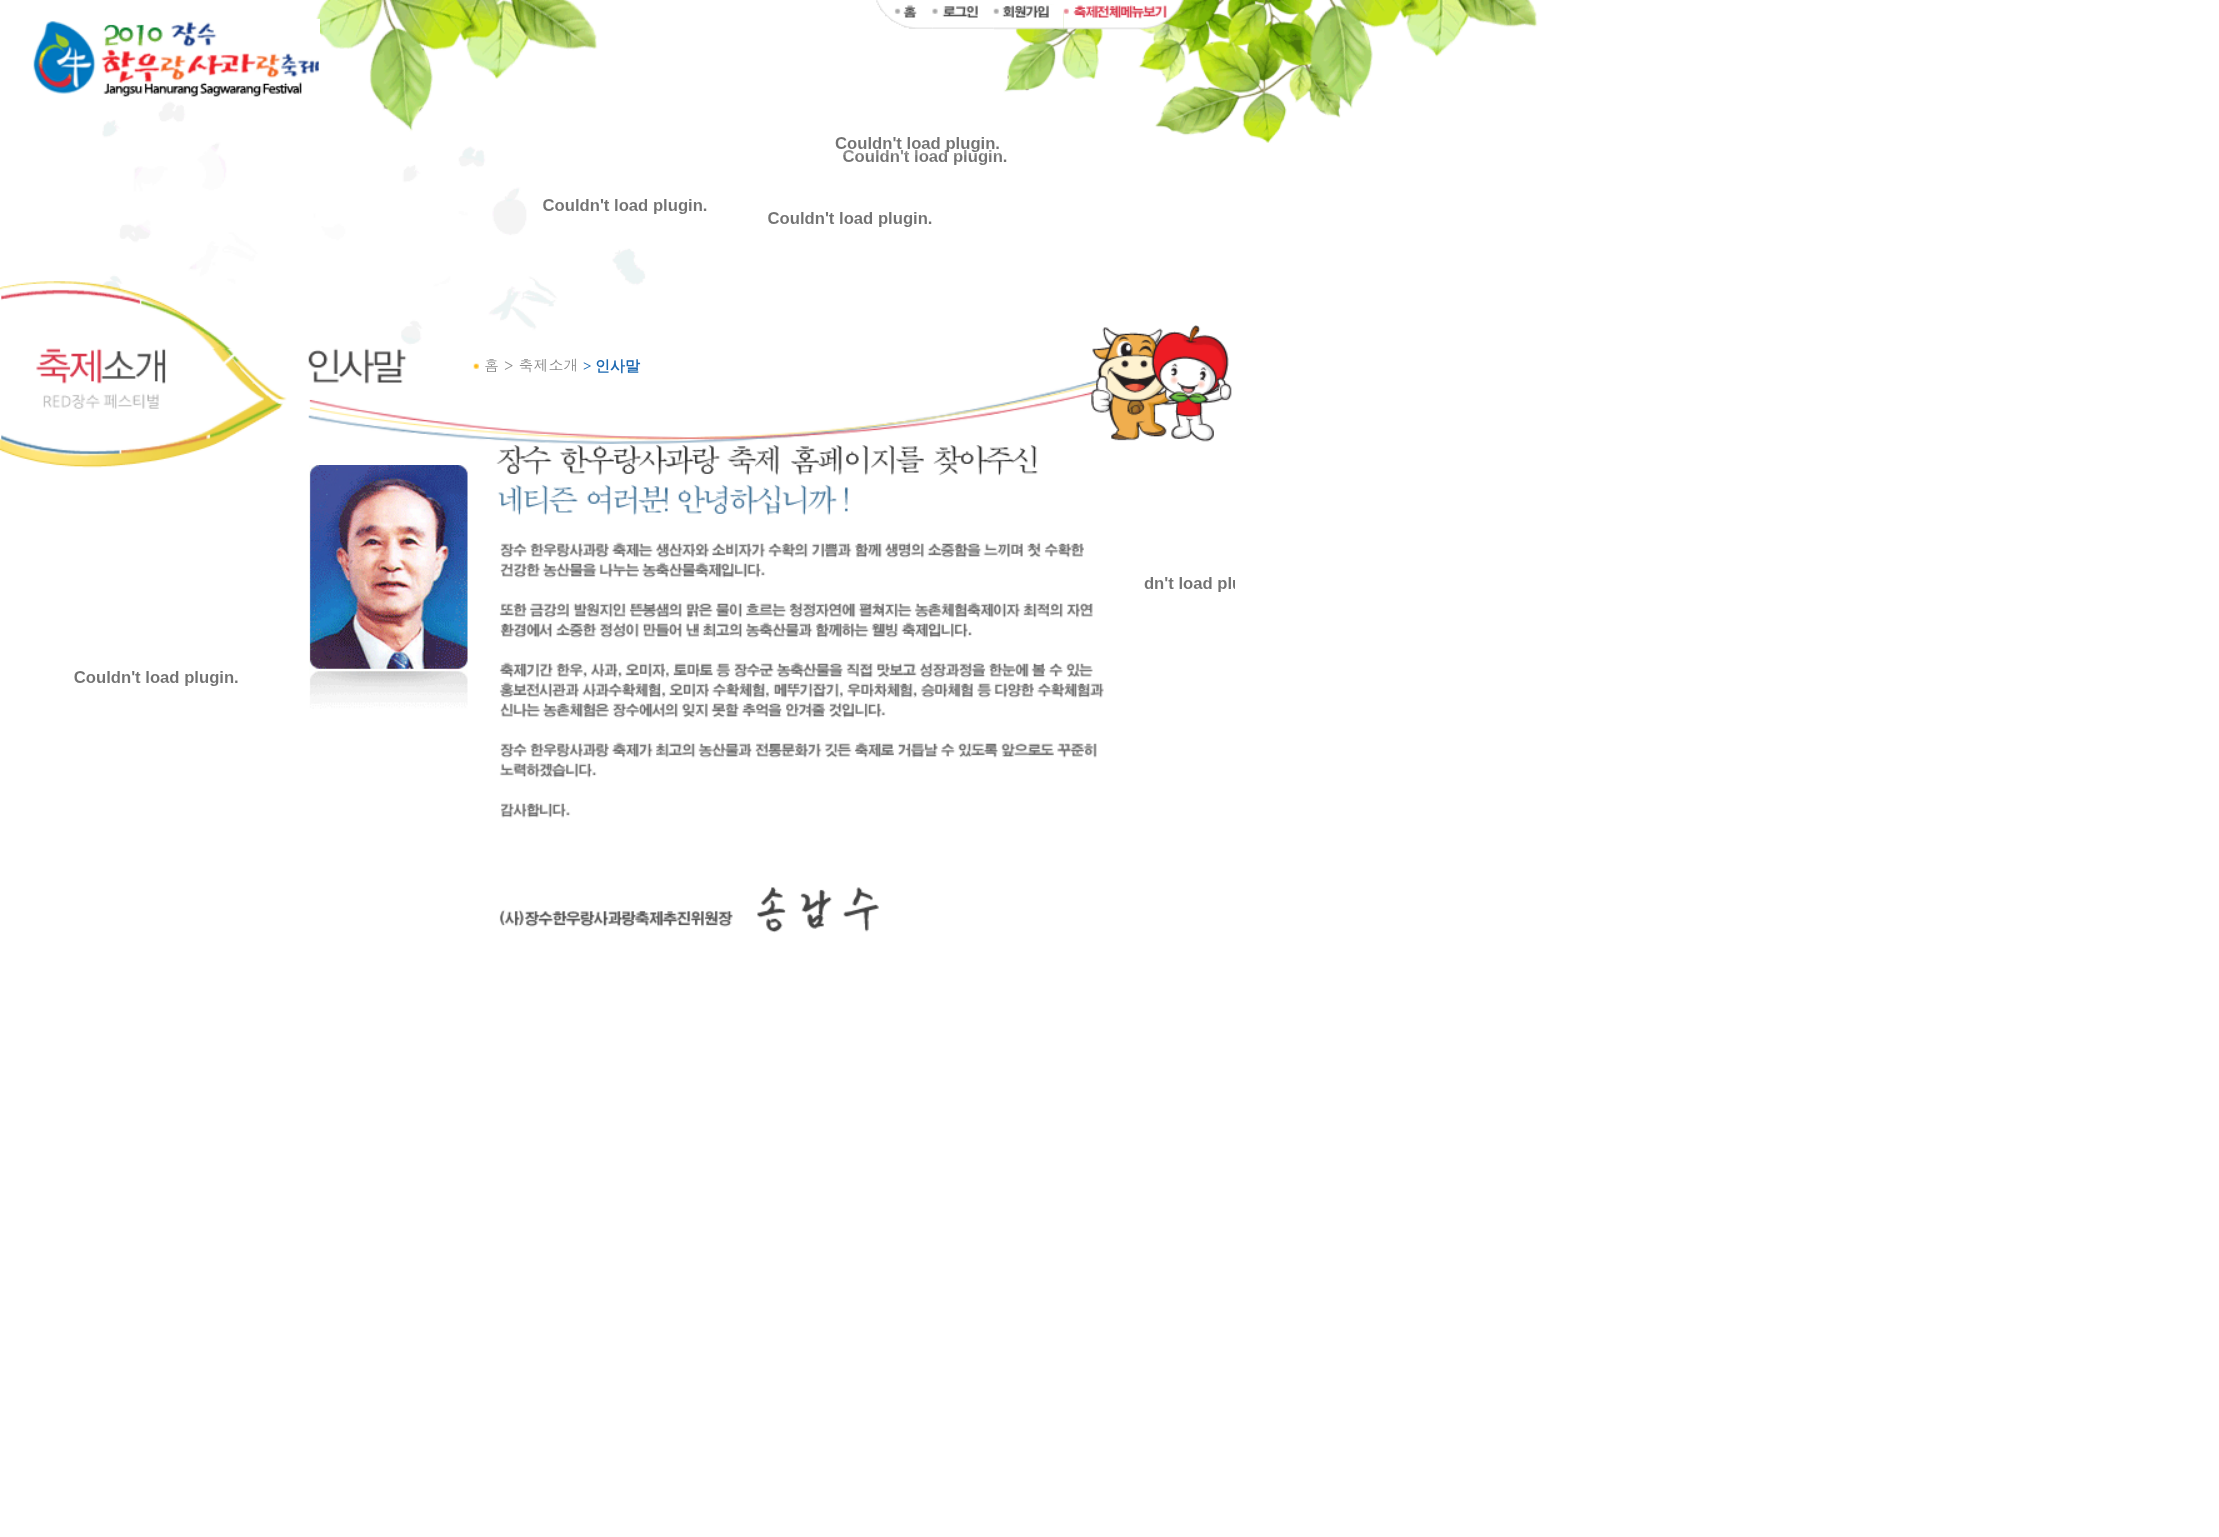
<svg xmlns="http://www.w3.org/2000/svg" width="2219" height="1537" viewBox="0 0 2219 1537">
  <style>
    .t1 { font: 15px Dotum; fill: #8a8a8a; }
    .t2 { font: bold 15px Liberation Serif; fill: #1b68b1; }
    .t3 { font: bold 15px WenQuanYi Zen Hei; fill: #1b68b1; }
  </style>
  <rect width="100%" height="100%" fill="#fff"/>
  <image x="0" y="0" width="1538" height="398" href="images/1.png"/>
  <image x="876" y="0" width="57" height="29" href="images/2.png"/>
  <image x="932" y="5" width="62" height="24" href="images/3.png"/>
  <image x="993" y="5" width="71" height="25" href="images/4.png"/>
  <image x="1063" y="0" width="121" height="30" href="images/5.png"/>
  <image x="33" y="18" width="287" height="79" href="images/6.png"/>
  <image x="843" y="150" width="164" height="15" href="images/8.png"/>
  <image x="835" y="137" width="167" height="18" href="images/7.png"/>
  <image x="543" y="199" width="164" height="15" href="images/8.png"/>
  <image x="768" y="212" width="164" height="15" href="images/8.png"/>
  <image x="0" y="348" width="287" height="120" href="images/9.png"/>
  <image x="74" y="671" width="164" height="15" href="images/10.png"/>
  <image x="308" y="349" width="890" height="96" href="images/11.png"/>
  <image x="308" y="348" width="99" height="36" href="images/12.png"/>
  <image x="473" y="363" width="6" height="6" href="images/13.png"/>
  <text x="484" y="371" class="t1">홈 &gt; 축제소개</text>
  <text x="583" y="371" class="t2">&gt;</text>
  <text x="595" y="371" class="t3">인사말</text>
  <image x="1091" y="325" width="141" height="117" href="images/14.png"/>
  <image x="309" y="465" width="159" height="244" href="images/15.png"/>
  <image x="496" y="445" width="608" height="488" href="images/16.png"/>
  <image x="1144" y="577" width="91" height="15" href="images/17.png"/>
</svg>
